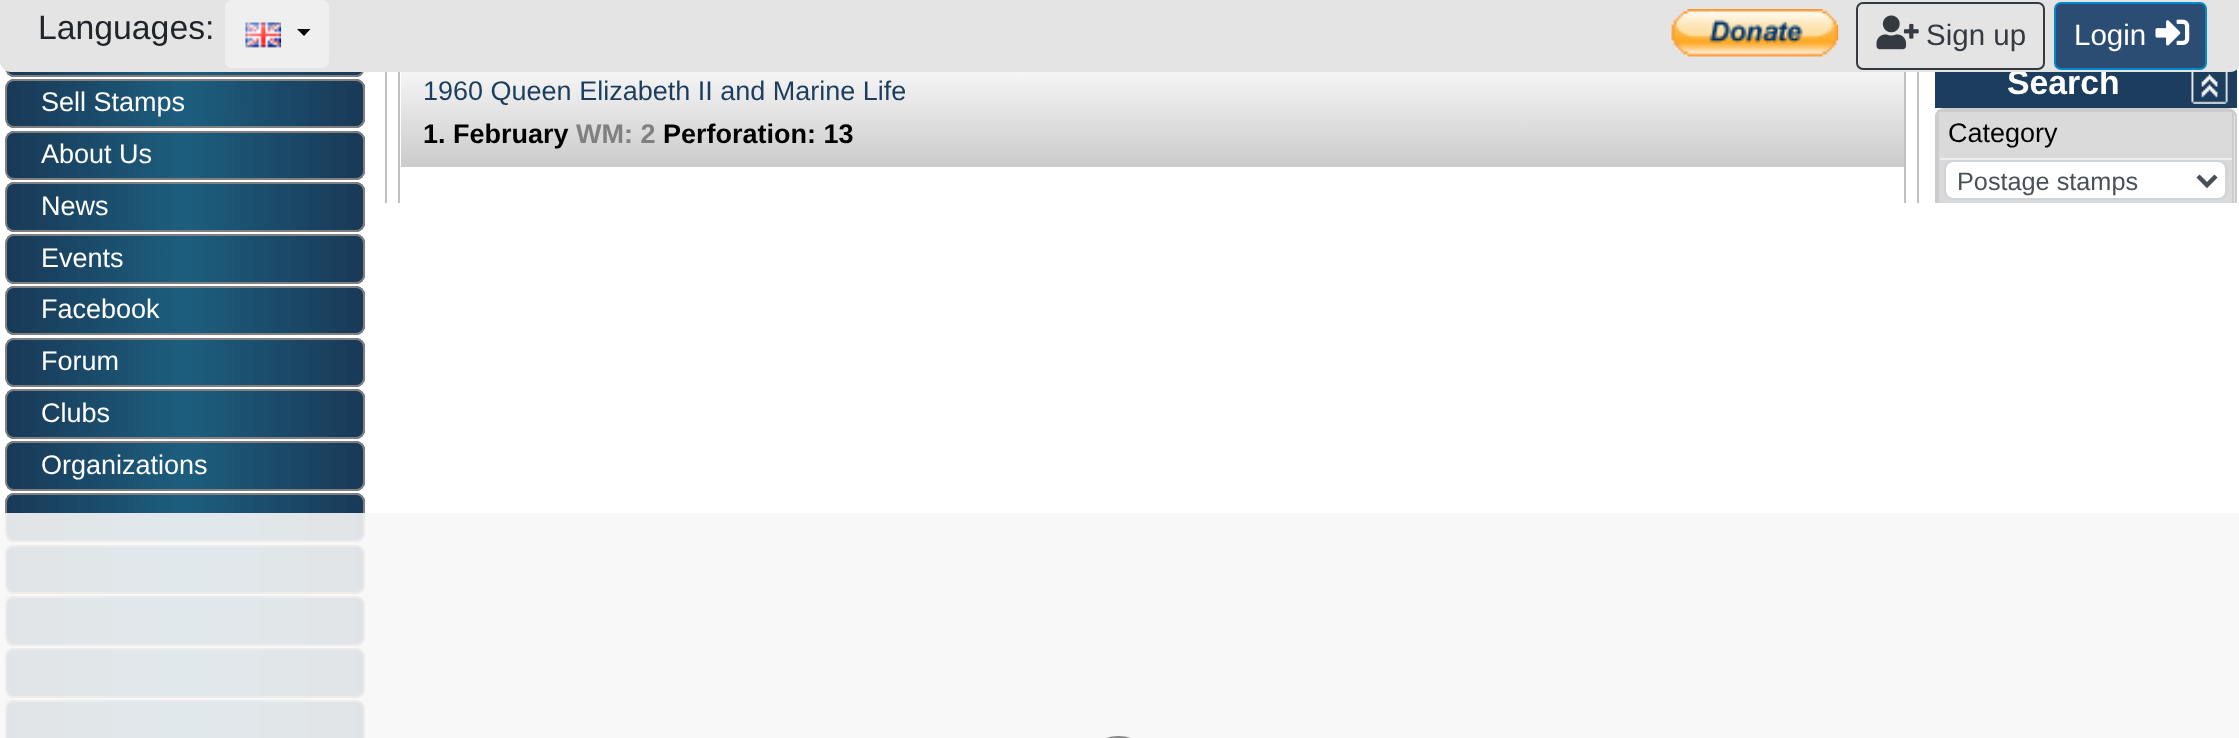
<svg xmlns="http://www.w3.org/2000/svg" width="2239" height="738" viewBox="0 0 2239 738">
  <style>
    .t1 { font: bold 33.75px Liberation Sans; fill: #fff; }
    .t2 { font: 33.75px Liberation Sans; fill: #212529; }
    .t3 { font: 29.5px Liberation Sans; fill: #343a40; }
    .t4 { font: 29.5px Liberation Sans; fill: #fff; }
    .t5 { font: 27px Liberation Sans; fill: #fff; }
    .t6 { font: 27px Liberation Sans; fill: #1c3d5e; }
    .t7 { font: bold 27px Liberation Sans; fill: #000; }
    .t8 { font: bold 27px Liberation Sans; fill: #808080; }
    .t9 { font: 27px Liberation Sans; fill: #000; }
    .t10 { font: 25.25px Liberation Sans; fill: #495057; }
  </style>
  <defs>
    <clipPath id="clip1"><rect x="5" y="27" width="360" height="50" rx="9"/></clipPath>
    <linearGradient id="g1" gradientUnits="userSpaceOnUse" x1="6.8" y1="52" x2="362" y2="52"><stop offset="0" stop-color="#193957"/><stop offset="0.5" stop-color="#1d5e7e"/><stop offset="1" stop-color="#193957"/></linearGradient>
    <clipPath id="clip2"><rect x="374" y="0" width="1557" height="203"/></clipPath>
    <clipPath id="clip3"><rect x="5" y="79" width="360" height="49" rx="9"/></clipPath>
    <linearGradient id="g2" gradientUnits="userSpaceOnUse" x1="6.8" y1="104" x2="362" y2="103"><stop offset="0" stop-color="#193957"/><stop offset="0.5" stop-color="#1d5e7e"/><stop offset="1" stop-color="#193957"/></linearGradient>
    <linearGradient id="g3" gradientUnits="userSpaceOnUse" x1="362" y1="104" x2="718" y2="103"><stop offset="0" stop-color="#193957"/><stop offset="0.5" stop-color="#1d5e7e"/><stop offset="1" stop-color="#193957"/></linearGradient>
    <clipPath id="clip4"><rect x="5" y="131" width="360" height="49" rx="9"/></clipPath>
    <linearGradient id="g4" gradientUnits="userSpaceOnUse" x1="6.8" y1="155" x2="362" y2="155"><stop offset="0" stop-color="#193957"/><stop offset="0.5" stop-color="#1d5e7e"/><stop offset="1" stop-color="#193957"/></linearGradient>
    <linearGradient id="g5" gradientUnits="userSpaceOnUse" x1="362" y1="155" x2="718" y2="155"><stop offset="0" stop-color="#193957"/><stop offset="0.5" stop-color="#1d5e7e"/><stop offset="1" stop-color="#193957"/></linearGradient>
    <clipPath id="clip5"><rect x="5" y="182" width="360" height="50" rx="9"/></clipPath>
    <linearGradient id="g6" gradientUnits="userSpaceOnUse" x1="6.8" y1="207" x2="362" y2="207"><stop offset="0" stop-color="#193957"/><stop offset="0.5" stop-color="#1d5e7e"/><stop offset="1" stop-color="#193957"/></linearGradient>
    <linearGradient id="g7" gradientUnits="userSpaceOnUse" x1="362" y1="207" x2="718" y2="207"><stop offset="0" stop-color="#193957"/><stop offset="0.5" stop-color="#1d5e7e"/><stop offset="1" stop-color="#193957"/></linearGradient>
    <clipPath id="clip6"><rect x="5" y="234" width="360" height="50" rx="9"/></clipPath>
    <linearGradient id="g8" gradientUnits="userSpaceOnUse" x1="6.8" y1="259" x2="362" y2="259"><stop offset="0" stop-color="#193957"/><stop offset="0.5" stop-color="#1d5e7e"/><stop offset="1" stop-color="#193957"/></linearGradient>
    <linearGradient id="g9" gradientUnits="userSpaceOnUse" x1="362" y1="259" x2="718" y2="259"><stop offset="0" stop-color="#193957"/><stop offset="0.5" stop-color="#1d5e7e"/><stop offset="1" stop-color="#193957"/></linearGradient>
    <clipPath id="clip7"><rect x="5" y="286" width="360" height="49" rx="9"/></clipPath>
    <linearGradient id="g10" gradientUnits="userSpaceOnUse" x1="6.8" y1="311" x2="362" y2="311"><stop offset="0" stop-color="#193957"/><stop offset="0.5" stop-color="#1d5e7e"/><stop offset="1" stop-color="#193957"/></linearGradient>
    <linearGradient id="g11" gradientUnits="userSpaceOnUse" x1="362" y1="311" x2="718" y2="311"><stop offset="0" stop-color="#193957"/><stop offset="0.5" stop-color="#1d5e7e"/><stop offset="1" stop-color="#193957"/></linearGradient>
    <clipPath id="clip8"><rect x="5" y="338" width="360" height="49" rx="9"/></clipPath>
    <linearGradient id="g12" gradientUnits="userSpaceOnUse" x1="6.8" y1="362" x2="362" y2="362"><stop offset="0" stop-color="#193957"/><stop offset="0.5" stop-color="#1d5e7e"/><stop offset="1" stop-color="#193957"/></linearGradient>
    <linearGradient id="g13" gradientUnits="userSpaceOnUse" x1="362" y1="362" x2="718" y2="362"><stop offset="0" stop-color="#193957"/><stop offset="0.5" stop-color="#1d5e7e"/><stop offset="1" stop-color="#193957"/></linearGradient>
    <clipPath id="clip9"><rect x="5" y="389" width="360" height="50" rx="9"/></clipPath>
    <linearGradient id="g14" gradientUnits="userSpaceOnUse" x1="6.8" y1="414" x2="362" y2="414"><stop offset="0" stop-color="#193957"/><stop offset="0.5" stop-color="#1d5e7e"/><stop offset="1" stop-color="#193957"/></linearGradient>
    <linearGradient id="g15" gradientUnits="userSpaceOnUse" x1="362" y1="414" x2="718" y2="414"><stop offset="0" stop-color="#193957"/><stop offset="0.5" stop-color="#1d5e7e"/><stop offset="1" stop-color="#193957"/></linearGradient>
    <clipPath id="clip10"><rect x="5" y="441" width="360" height="50" rx="9"/></clipPath>
    <linearGradient id="g16" gradientUnits="userSpaceOnUse" x1="6.8" y1="466" x2="362" y2="466"><stop offset="0" stop-color="#193957"/><stop offset="0.5" stop-color="#1d5e7e"/><stop offset="1" stop-color="#193957"/></linearGradient>
    <linearGradient id="g17" gradientUnits="userSpaceOnUse" x1="362" y1="466" x2="718" y2="466"><stop offset="0" stop-color="#193957"/><stop offset="0.5" stop-color="#1d5e7e"/><stop offset="1" stop-color="#193957"/></linearGradient>
    <clipPath id="clip11"><rect x="5" y="493" width="360" height="49" rx="9"/></clipPath>
    <linearGradient id="g18" gradientUnits="userSpaceOnUse" x1="6.8" y1="518" x2="362" y2="518"><stop offset="0" stop-color="#193957"/><stop offset="0.5" stop-color="#1d5e7e"/><stop offset="1" stop-color="#193957"/></linearGradient>
    <linearGradient id="g19" gradientUnits="userSpaceOnUse" x1="362" y1="518" x2="718" y2="518"><stop offset="0" stop-color="#193957"/><stop offset="0.5" stop-color="#1d5e7e"/><stop offset="1" stop-color="#193957"/></linearGradient>
    <clipPath id="clip12"><rect x="5" y="545" width="360" height="49" rx="9"/></clipPath>
    <linearGradient id="g20" gradientUnits="userSpaceOnUse" x1="6.8" y1="569" x2="362" y2="569"><stop offset="0" stop-color="#193957"/><stop offset="0.5" stop-color="#1d5e7e"/><stop offset="1" stop-color="#193957"/></linearGradient>
    <linearGradient id="g21" gradientUnits="userSpaceOnUse" x1="362" y1="569" x2="718" y2="569"><stop offset="0" stop-color="#193957"/><stop offset="0.5" stop-color="#1d5e7e"/><stop offset="1" stop-color="#193957"/></linearGradient>
    <clipPath id="clip13"><rect x="5" y="596" width="360" height="50" rx="9"/></clipPath>
    <linearGradient id="g22" gradientUnits="userSpaceOnUse" x1="6.8" y1="621" x2="362" y2="621"><stop offset="0" stop-color="#193957"/><stop offset="0.5" stop-color="#1d5e7e"/><stop offset="1" stop-color="#193957"/></linearGradient>
    <linearGradient id="g23" gradientUnits="userSpaceOnUse" x1="362" y1="621" x2="718" y2="621"><stop offset="0" stop-color="#193957"/><stop offset="0.5" stop-color="#1d5e7e"/><stop offset="1" stop-color="#193957"/></linearGradient>
    <clipPath id="clip14"><rect x="5" y="648" width="360" height="50" rx="9"/></clipPath>
    <linearGradient id="g24" gradientUnits="userSpaceOnUse" x1="6.8" y1="673" x2="362" y2="673"><stop offset="0" stop-color="#193957"/><stop offset="0.5" stop-color="#1d5e7e"/><stop offset="1" stop-color="#193957"/></linearGradient>
    <linearGradient id="g25" gradientUnits="userSpaceOnUse" x1="362" y1="673" x2="718" y2="673"><stop offset="0" stop-color="#193957"/><stop offset="0.5" stop-color="#1d5e7e"/><stop offset="1" stop-color="#193957"/></linearGradient>
    <clipPath id="clip15"><rect x="5" y="700" width="360" height="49" rx="9"/></clipPath>
    <linearGradient id="g26" gradientUnits="userSpaceOnUse" x1="6.8" y1="725" x2="362" y2="725"><stop offset="0" stop-color="#193957"/><stop offset="0.5" stop-color="#1d5e7e"/><stop offset="1" stop-color="#193957"/></linearGradient>
    <linearGradient id="g27" gradientUnits="userSpaceOnUse" x1="362" y1="725" x2="718" y2="725"><stop offset="0" stop-color="#193957"/><stop offset="0.5" stop-color="#1d5e7e"/><stop offset="1" stop-color="#193957"/></linearGradient>
    <linearGradient id="g28" gradientUnits="userSpaceOnUse" x1="1152" y1="167" x2="1152" y2="63"><stop offset="0" stop-color="#cbcbcb"/><stop offset="1" stop-color="#f9f9f9"/></linearGradient>
    <clipPath id="clip16"><rect x="1931" y="0" width="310" height="203"/></clipPath>
    <clipPath id="clip17"><rect x="1937" y="110" width="297" height="93"/></clipPath>
  </defs>
  <rect width="100%" height="100%" fill="#fff"/>
  <g clip-path="url(#clip1)">
    <rect x="7" y="71" width="355" height="6" fill="url(#g1)"/>
  </g>
  <rect x="6" y="28" width="358" height="48" rx="8" fill="none" stroke="#808080" stroke-width="2"/>
  <g clip-path="url(#clip2)">
    <rect x="399" y="62" width="1506" height="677" fill="none" stroke="#c0c0c0" stroke-width="2"/>
  </g>
  <rect x="1935" y="69" width="302" height="39" fill="#1c3d5e"/>
  <text x="2007" y="94" class="t1">Search</text>
  <path d="M0 0H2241V61C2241 67 2236 72 2230 72H11C5 72 0 67 0 61Z" fill="#e4e4e4"/>
  <text x="38" y="39" class="t2">Languages:</text>
  <rect x="225" y="0" width="104" height="68" rx="7" fill="#efefef"/>
  <image x="245" y="22" width="37" height="26" href="images/1.png"/>
  <path d="M297 29H310.5L304 36Z" fill="#000"/>
  <image x="1671" y="9" width="168" height="48" href="images/2.png"/>
  <rect x="1857" y="3" width="187" height="66" rx="6" fill="none" stroke="#343a40" stroke-width="2"/>
  <image x="1876" y="15" width="43" height="35" href="images/3.png"/>
  <text x="1926" y="45" class="t3">Sign up</text>
  <rect x="2055" y="3" width="151" height="66" rx="6" fill="#2b4d73" stroke="#0089cb" stroke-width="2"/>
  <text x="2074" y="45" class="t4">Login</text>
  <image x="2155" y="19" width="35" height="27" href="images/4.png"/>
  <g clip-path="url(#clip3)">
    <rect x="7" y="79" width="355" height="49" fill="url(#g2)"/>
    <rect x="362" y="79" width="3" height="49" fill="url(#g3)"/>
  </g>
  <rect x="6" y="80" width="358" height="47" rx="8" fill="none" stroke="#808080" stroke-width="2"/>
  <text x="41" y="111" class="t5">Sell Stamps</text>
  <g clip-path="url(#clip4)">
    <rect x="7" y="131" width="355" height="49" fill="url(#g4)"/>
    <rect x="362" y="131" width="3" height="49" fill="url(#g5)"/>
  </g>
  <rect x="6" y="132" width="358" height="47" rx="8" fill="none" stroke="#808080" stroke-width="2"/>
  <text x="41" y="163" class="t5">About Us</text>
  <g clip-path="url(#clip5)">
    <rect x="7" y="182" width="355" height="50" fill="url(#g6)"/>
    <rect x="362" y="182" width="3" height="50" fill="url(#g7)"/>
  </g>
  <rect x="6" y="183" width="358" height="48" rx="8" fill="none" stroke="#808080" stroke-width="2"/>
  <text x="41" y="215" class="t5">News</text>
  <g clip-path="url(#clip6)">
    <rect x="7" y="234" width="355" height="50" fill="url(#g8)"/>
    <rect x="362" y="234" width="3" height="50" fill="url(#g9)"/>
  </g>
  <rect x="6" y="235" width="358" height="48" rx="8" fill="none" stroke="#808080" stroke-width="2"/>
  <text x="41" y="267" class="t5">Events</text>
  <g clip-path="url(#clip7)">
    <rect x="7" y="286" width="355" height="49" fill="url(#g10)"/>
    <rect x="362" y="286" width="3" height="49" fill="url(#g11)"/>
  </g>
  <rect x="6" y="287" width="358" height="47" rx="8" fill="none" stroke="#808080" stroke-width="2"/>
  <text x="41" y="318" class="t5">Facebook</text>
  <g clip-path="url(#clip8)">
    <rect x="7" y="338" width="355" height="49" fill="url(#g12)"/>
    <rect x="362" y="338" width="3" height="49" fill="url(#g13)"/>
  </g>
  <rect x="6" y="339" width="358" height="47" rx="8" fill="none" stroke="#808080" stroke-width="2"/>
  <text x="41" y="370" class="t5">Forum</text>
  <g clip-path="url(#clip9)">
    <rect x="7" y="389" width="355" height="50" fill="url(#g14)"/>
    <rect x="362" y="389" width="3" height="50" fill="url(#g15)"/>
  </g>
  <rect x="6" y="390" width="358" height="48" rx="8" fill="none" stroke="#808080" stroke-width="2"/>
  <text x="41" y="422" class="t5">Clubs</text>
  <g clip-path="url(#clip10)">
    <rect x="7" y="441" width="355" height="50" fill="url(#g16)"/>
    <rect x="362" y="441" width="3" height="50" fill="url(#g17)"/>
  </g>
  <rect x="6" y="442" width="358" height="48" rx="8" fill="none" stroke="#808080" stroke-width="2"/>
  <text x="41" y="474" class="t5">Organizations</text>
  <g clip-path="url(#clip11)">
    <rect x="7" y="493" width="355" height="49" fill="url(#g18)"/>
    <rect x="362" y="493" width="3" height="49" fill="url(#g19)"/>
  </g>
  <rect x="6" y="494" width="358" height="47" rx="8" fill="none" stroke="#808080" stroke-width="2"/>
  <g clip-path="url(#clip12)">
    <rect x="7" y="545" width="355" height="49" fill="url(#g20)"/>
    <rect x="362" y="545" width="3" height="49" fill="url(#g21)"/>
  </g>
  <rect x="6" y="546" width="358" height="47" rx="8" fill="none" stroke="#808080" stroke-width="2"/>
  <g clip-path="url(#clip13)">
    <rect x="7" y="596" width="355" height="50" fill="url(#g22)"/>
    <rect x="362" y="596" width="3" height="50" fill="url(#g23)"/>
  </g>
  <rect x="6" y="597" width="358" height="48" rx="8" fill="none" stroke="#808080" stroke-width="2"/>
  <g clip-path="url(#clip14)">
    <rect x="7" y="648" width="355" height="50" fill="url(#g24)"/>
    <rect x="362" y="648" width="3" height="50" fill="url(#g25)"/>
  </g>
  <rect x="6" y="649" width="358" height="48" rx="8" fill="none" stroke="#808080" stroke-width="2"/>
  <g clip-path="url(#clip15)">
    <rect x="7" y="700" width="355" height="38" fill="url(#g26)"/>
    <rect x="362" y="700" width="3" height="38" fill="url(#g27)"/>
  </g>
  <rect x="6" y="701" width="358" height="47" rx="8" fill="none" stroke="#808080" stroke-width="2"/>
  <rect x="1917" y="72" width="2" height="131" fill="#c0c0c0"/>
  <rect x="385" y="72" width="2" height="131" fill="#c0c0c0"/>
  <rect x="401" y="72" width="1503" height="95" fill="url(#g28)"/>
  <text x="423" y="100" class="t6">1960 Queen Elizabeth II and Marine Life</text>
  <text x="423" y="143" class="t7">1. February</text>
  <text x="576" y="143" class="t8">WM: 2</text>
  <text x="663" y="143" class="t7">Perforation: 13</text>
  <image x="2191" y="72" width="37" height="32" href="images/5.png"/>
  <path d="M1944 108H2228C2233 108 2237 112 2237 117V203H1935V117C1935 112 1939 108 1944 108Z" fill="#e6e6e6"/>
  <g clip-path="url(#clip16)">
    <rect x="1936" y="109" width="300" height="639" rx="8" fill="none" stroke="#ccc" stroke-width="2"/>
  </g>
  <rect x="1939" y="112" width="293" height="91" fill="#0000000d"/>
  <g clip-path="url(#clip17)">
    <rect x="1938" y="111" width="295" height="97" fill="none" stroke="#ccc" stroke-width="2"/>
  </g>
  <rect x="1940" y="158" width="292" height="2" fill="#eee"/>
  <text x="1948" y="142" class="t9">Category</text>
  <rect x="1946" y="162" width="279" height="36" rx="7" fill="#fff"/>
  <rect x="1945" y="161" width="282" height="38" rx="8" fill="none" stroke="#ced4da" stroke-width="2"/>
  <path d="M2198 176L2207 185L2216 176" fill="none" stroke="#495057" stroke-width="4.5"/>
  <text x="1957" y="190" class="t10">Postage stamps</text>
  <rect x="0" y="513" width="2239" height="225" fill="#f7f7f7e6"/>
  <rect x="1095" y="737" width="47" height="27" rx="23.5" fill="none" stroke="#888" stroke-width="2"/>
</svg>
